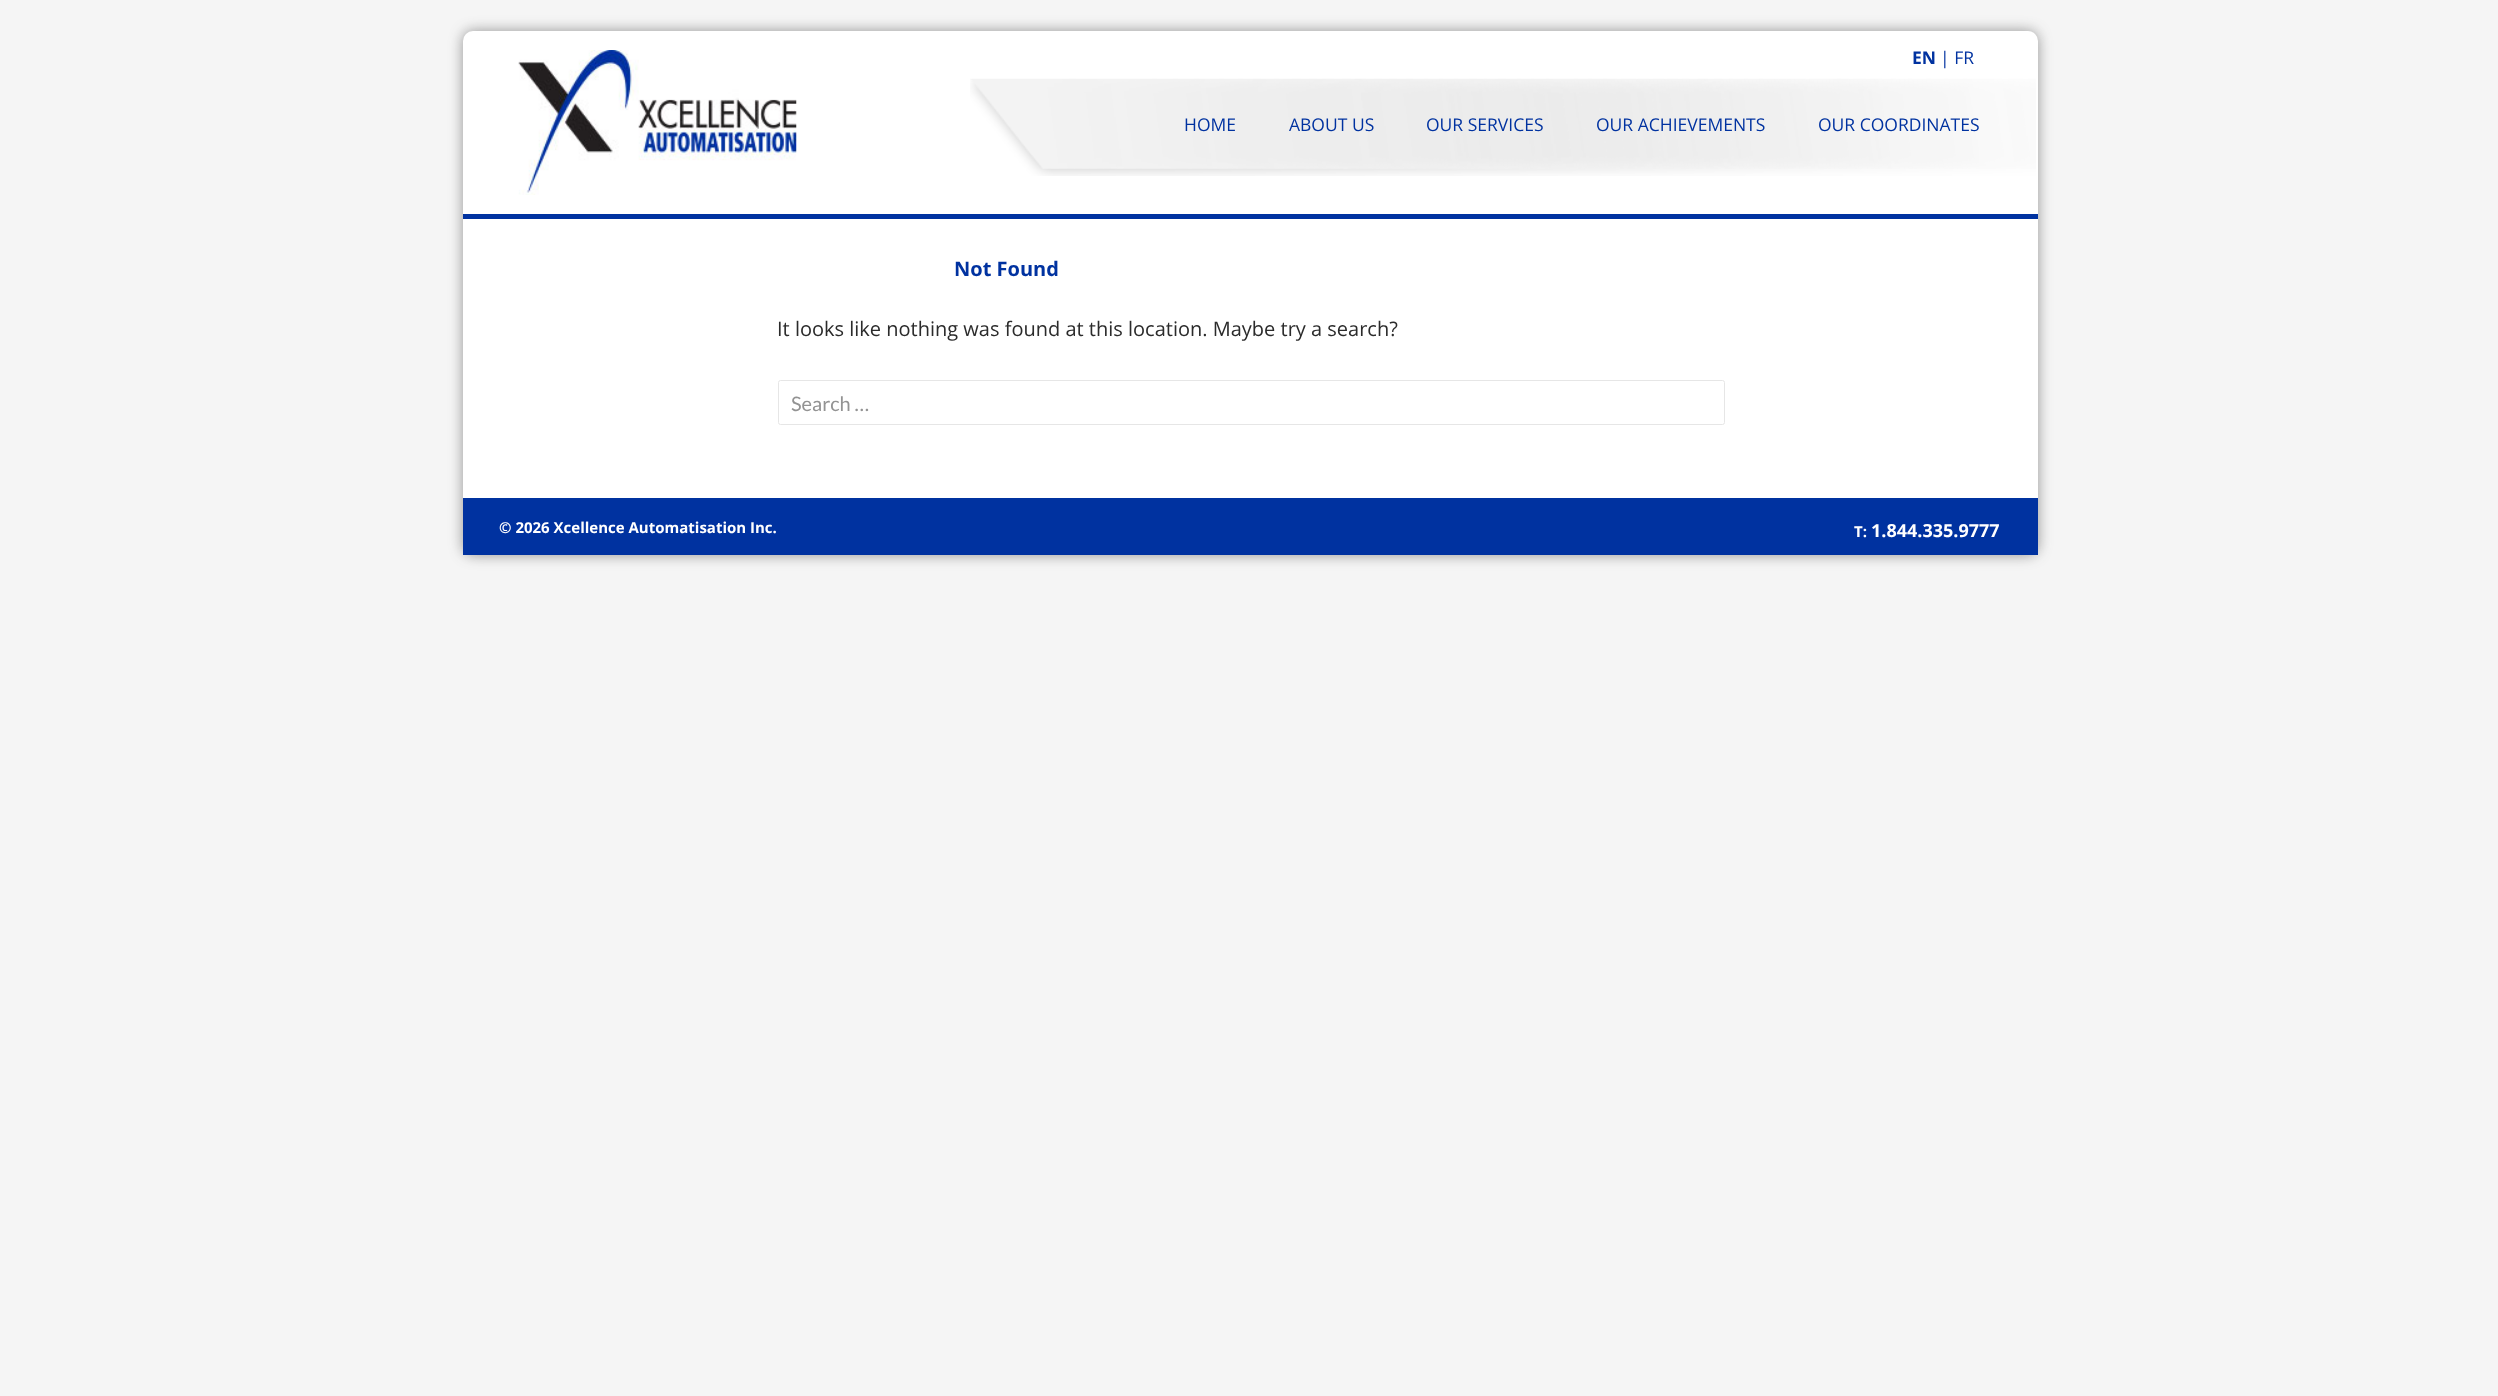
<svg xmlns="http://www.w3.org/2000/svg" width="2498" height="1396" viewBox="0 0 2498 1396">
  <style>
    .t1 { font: bold 17.5px Open Sans; fill: #0032a0; }
    .t2 { font: 17.5px Open Sans; fill: #0032a0; }
    .t3 { font: bold 20px Open Sans; fill: #0032a0; }
    .t4 { font: 20px Open Sans; fill: #2b2b2b; }
    .t5 { font: 20px Lato; fill: #939393; }
    .t6 { font: bold 15px Open Sans; fill: #fff; }
    .t7 { font: bold 18px Open Sans; fill: #fff; }
  </style>
  <rect width="100%" height="100%" fill="#f5f5f5"/>
  <rect x="463" y="31" width="1575" height="524" rx="10" fill="#32323280" filter="blur(7px)"/>
  <rect x="463" y="31" width="1575" height="524" rx="10" fill="#fff"/>
  <rect x="463" y="214" width="1575" height="5" fill="#0032a0"/>
  <image x="518" y="50" width="279" height="145" href="images/1.png"/>
  <text x="1912" y="64" class="t1">EN</text>
  <text x="1940" y="64" class="t2">| FR</text>
  <image x="970" y="78" width="1066" height="98" href="images/2.png"/>
  <text x="1184" y="131" class="t2">HOME</text>
  <text x="1289" y="131" class="t2">ABOUT US</text>
  <text x="1426" y="131" class="t2">OUR SERVICES</text>
  <text x="1596" y="131" class="t2">OUR ACHIEVEMENTS</text>
  <text x="1818" y="131" class="t2">OUR COORDINATES</text>
  <text x="954" y="276" class="t3">Not Found</text>
  <text x="777" y="336" class="t4">It looks like nothing was found at this location. Maybe try a search?</text>
  <rect x="778.5" y="380.5" width="946" height="44" rx="2" fill="none" stroke="#e6e6e6"/>
  <text x="791" y="411" class="t5">Search …</text>
  <rect x="463" y="498" width="1575" height="57" fill="#0032a0"/>
  <text x="499" y="533" class="t6">© 2026 Xcellence Automatisation Inc.</text>
  <text x="1854" y="537" class="t6">T:</text>
  <text x="1871" y="537" class="t7">1.844.335.9777</text>
</svg>
